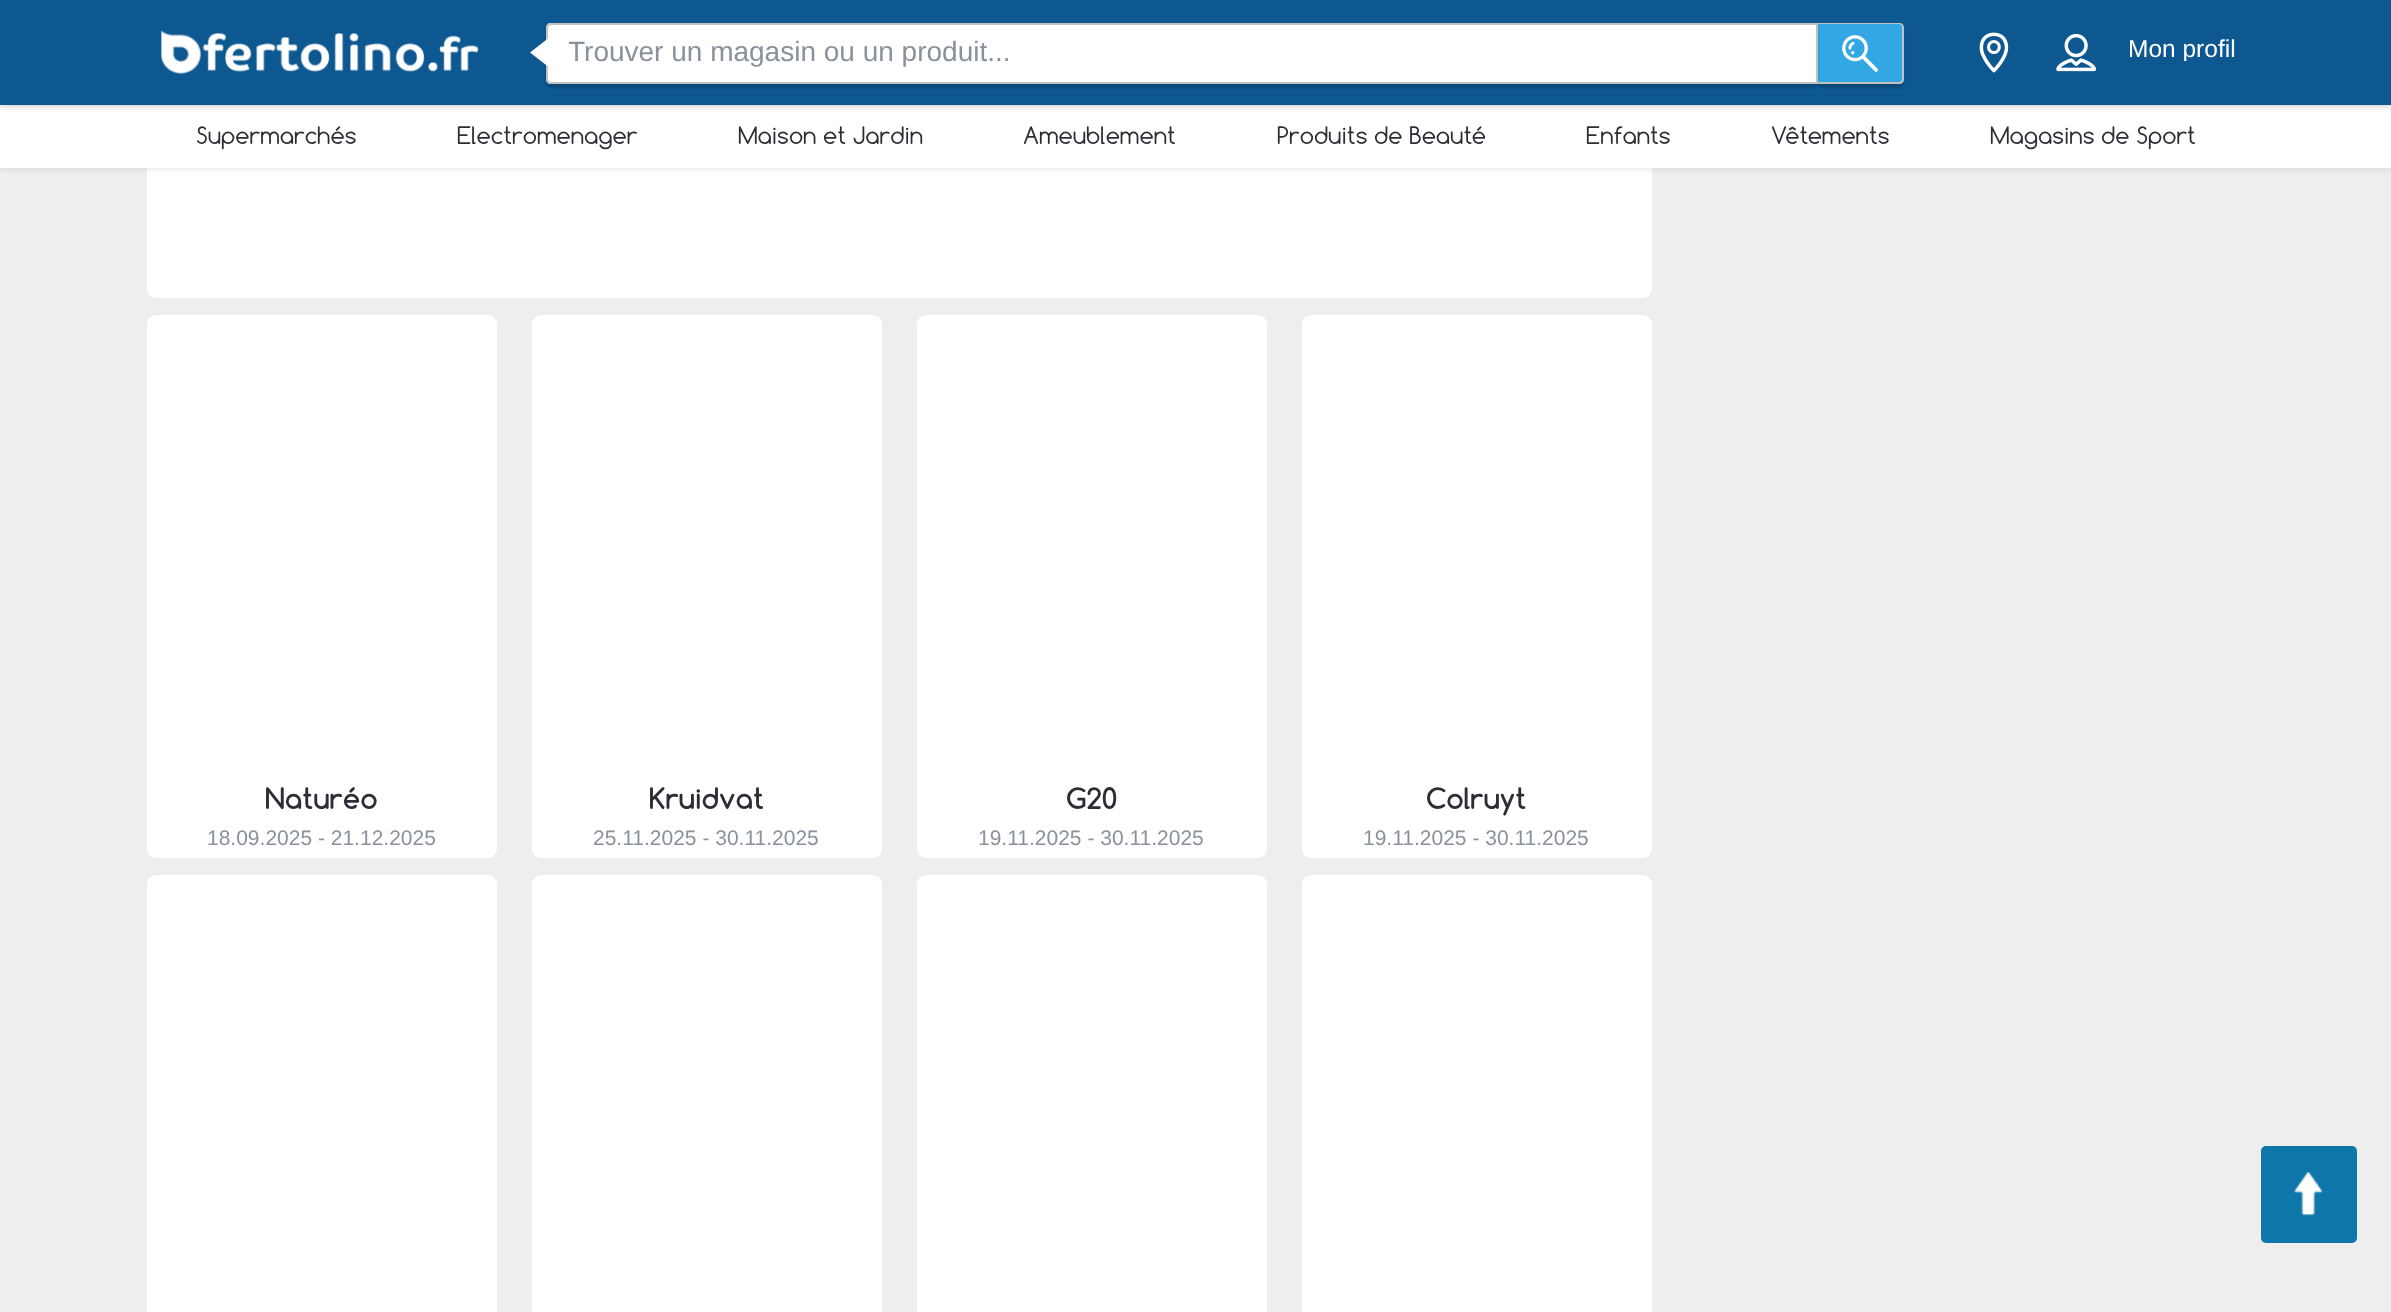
<svg xmlns="http://www.w3.org/2000/svg" width="2391" height="1312" viewBox="0 0 2391 1312">
  <style>
    .t1 { font: 28px Liberation Sans; fill: #89919c; }
    .t2 { font: 24.5px Liberation Sans; fill: #fff; }
    .t3 { font: 22.75px Comfortaa; fill: #2b2f35; }
    .t4 { font: bold 28px Comfortaa; fill: #2b2f35; }
    .t5 { font: 21px Liberation Sans; fill: #89919c; }
  </style>
  <defs>
    <clipPath id="clip1"><path d="M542 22H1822V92H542ZM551 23H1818V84H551C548 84 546 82 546 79V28C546 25 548 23 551 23Z" clip-rule="evenodd"/></clipPath>
    <clipPath id="clip2"><rect x="569" y="37" width="1227" height="31"/></clipPath>
    <clipPath id="clip3"><rect x="2128" y="37" width="109" height="24"/></clipPath>
  </defs>
  <rect width="100%" height="100%" fill="#eee"/>
  <rect x="147" y="140" width="1505" height="158" rx="9" fill="#fff"/>
  <rect x="0" y="107" width="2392" height="63" fill="#99999933" filter="blur(2.5px)"/>
  <rect x="0" y="105" width="2391" height="63" fill="#fff"/>
  <rect x="0" y="0" width="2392" height="105" fill="#00000047" filter="blur(3.5px)"/>
  <rect x="0" y="0" width="2391" height="105" fill="#0e5891"/>
  <image x="161" y="30" width="318" height="44" href="images/1.png"/>
  <rect x="1818" y="26" width="86" height="62" rx="5" fill="#0000002b" filter="blur(1px)"/>
  <path d="M551 23H1818V84H551C548 84 546 82 546 79V28C546 25 548 23 551 23Z" fill="#fff"/>
  <path d="M1818 23H1899C1902 23 1904 25 1904 28V79C1904 82 1902 84 1899 84H1818Z" fill="#33a7e3"/>
  <path d="M1818 23H1899C1902 23 1904 25 1904 28V79C1904 82 1902 84 1899 84H1818ZM1818 24H1899C1901 24 1902 26 1902 28V79C1902 81 1901 82 1899 82H1818Z" fill="#c1c1c1" fill-rule="evenodd"/>
  <g clip-path="url(#clip1)">
    <rect x="546" y="26" width="1272" height="62" rx="5" fill="#0000002b" filter="blur(1px)"/>
  </g>
  <path d="M551 24H1817V83H551C549 83 547 81 547 79V28C547 26 549 24 551 24Z" fill="none" stroke="#c1c1c1" stroke-width="2"/>
  <path d="M548 38.5V66.5L530 52.5Z" fill="#fff"/>
  <g clip-path="url(#clip2)">
    <text x="568" y="61" class="t1">Trouver un magasin ou un produit...</text>
  </g>
  <image x="1842" y="35" width="36" height="37" href="images/2.png"/>
  <image x="1979" y="32" width="30" height="41" href="images/3.png"/>
  <image x="2056" y="33" width="41" height="39" href="images/4.png"/>
  <g clip-path="url(#clip3)">
    <text x="2128" y="57" class="t2">Mon profil</text>
  </g>
  <text x="196" y="144" class="t3">Supermarchés</text>
  <text x="457" y="144" class="t3">Electromenager</text>
  <text x="738" y="144" class="t3">Maison et Jardin</text>
  <text x="1023" y="144" class="t3">Ameublement</text>
  <text x="1277" y="144" class="t3">Produits de Beauté</text>
  <text x="1586" y="144" class="t3">Enfants</text>
  <text x="1771" y="144" class="t3">Vêtements</text>
  <text x="1990" y="144" class="t3">Magasins de Sport</text>
  <rect x="147" y="315" width="350" height="543" rx="9" fill="#fff"/>
  <text x="265" y="809" class="t4">Naturéo</text>
  <text x="207" y="845" class="t5">18.09.2025 - 21.12.2025</text>
  <rect x="532" y="315" width="350" height="543" rx="9" fill="#fff"/>
  <text x="649" y="809" class="t4">Kruidvat</text>
  <text x="593" y="845" class="t5">25.11.2025 - 30.11.2025</text>
  <rect x="917" y="315" width="350" height="543" rx="9" fill="#fff"/>
  <text x="1066" y="809" class="t4">G20</text>
  <text x="978" y="845" class="t5">19.11.2025 - 30.11.2025</text>
  <rect x="1302" y="315" width="350" height="543" rx="9" fill="#fff"/>
  <text x="1426" y="809" class="t4">Colruyt</text>
  <text x="1363" y="845" class="t5">19.11.2025 - 30.11.2025</text>
  <rect x="147" y="875" width="350" height="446" rx="9" fill="#fff"/>
  <rect x="532" y="875" width="350" height="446" rx="9" fill="#fff"/>
  <rect x="917" y="875" width="350" height="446" rx="9" fill="#fff"/>
  <rect x="1302" y="875" width="350" height="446" rx="9" fill="#fff"/>
  <rect x="2261" y="1146" width="96" height="97" rx="5" fill="#0e76a8"/>
  <image x="2293" y="1172" width="30" height="44" href="images/5.png"/>
</svg>
